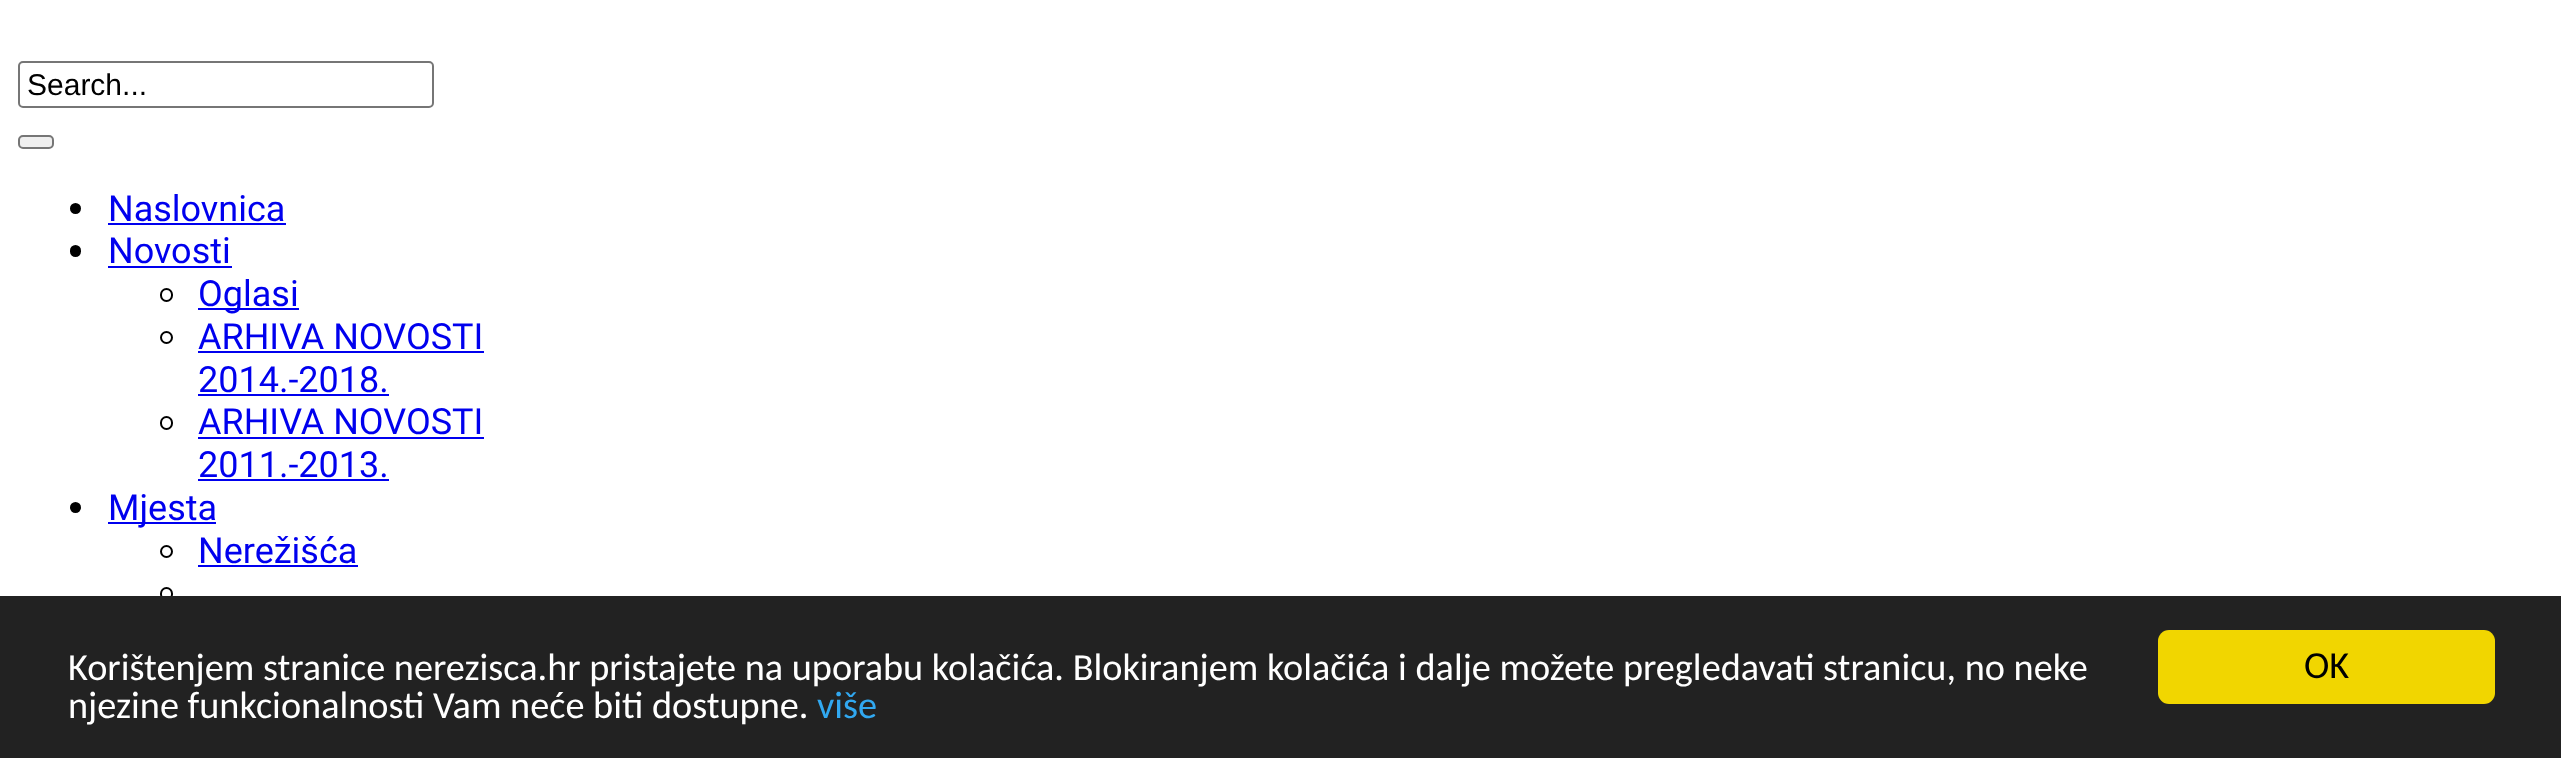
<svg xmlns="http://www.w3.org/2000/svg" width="2561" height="758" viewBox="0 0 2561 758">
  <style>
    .t1 { font: 30px Liberation Sans; fill: #000; }
    .t2 { font: 36px Roboto; fill: #00e; }
    .t3 { font: 38.25px Carlito; fill: #fff; }
    .t4 { font: 38.25px Carlito; fill: #31a8f0; }
    .t5 { font: 38.25px Carlito; fill: #000; }
  </style>
  <rect width="100%" height="100%" fill="#fff"/>
  <rect x="19" y="62" width="414" height="45" rx="4" fill="none" stroke="#767676" stroke-width="2"/>
  <text x="27" y="95" class="t1">Search...</text>
  <rect x="19" y="136" width="34" height="12" rx="4" fill="#efefef" stroke="#767676" stroke-width="2"/>
  <circle cx="75.5" cy="208.5" r="5.5" fill="#000"/>
  <text x="108" y="221" class="t2">Naslovnica</text>
  <rect x="108" y="223" width="178" height="2" fill="#00e"/>
  <rect x="70" y="245" width="11" height="12" rx="5.5" fill="#000"/>
  <text x="108" y="263" class="t2">Novosti</text>
  <rect x="108" y="266" width="124" height="2" fill="#00e"/>
  <rect x="161" y="289" width="11" height="12" rx="5.5" fill="none" stroke="#000" stroke-width="2"/>
  <rect x="198" y="308" width="101" height="2" fill="#00e"/>
  <text x="198" y="306" class="t2">Oglasi</text>
  <circle cx="166.5" cy="337.5" r="5.5" fill="none" stroke="#000" stroke-width="2"/>
  <text x="198" y="349" class="t2">ARHIVA NOVOSTI</text>
  <rect x="198" y="351" width="286" height="2" fill="#00e"/>
  <text x="198" y="392" class="t2">2014.-2018.</text>
  <rect x="198" y="394" width="191" height="2" fill="#00e"/>
  <rect x="161" y="417" width="11" height="12" rx="5.5" fill="none" stroke="#000" stroke-width="2"/>
  <text x="198" y="434" class="t2">ARHIVA NOVOSTI</text>
  <rect x="198" y="437" width="286" height="2" fill="#00e"/>
  <text x="198" y="477" class="t2">2011.-2013.</text>
  <rect x="198" y="479" width="191" height="2" fill="#00e"/>
  <circle cx="75.5" cy="507.5" r="5.5" fill="#000"/>
  <rect x="108" y="522" width="108" height="2" fill="#00e"/>
  <text x="108" y="520" class="t2">Mjesta</text>
  <circle cx="166.5" cy="551.5" r="5.5" fill="none" stroke="#000" stroke-width="2"/>
  <text x="198" y="563" class="t2">Nerežišća</text>
  <rect x="198" y="565" width="160" height="2" fill="#00e"/>
  <rect x="161" y="588" width="11" height="12" rx="5.5" fill="none" stroke="#000" stroke-width="2"/>
  <rect x="0" y="596" width="2561" height="162" fill="#222"/>
  <text x="68" y="680" class="t3">Korištenjem stranice nerezisca.hr pristajete na uporabu kolačića. Blokiranjem kolačića i dalje možete pregledavati stranicu, no neke</text>
  <text x="68" y="718" class="t3">njezine funkcionalnosti Vam neće biti dostupne.</text>
  <text x="817" y="718" class="t4">više</text>
  <rect x="2158" y="630" width="337" height="74" rx="11" fill="#f1d600"/>
  <text x="2304" y="678" class="t5">OK</text>
</svg>
